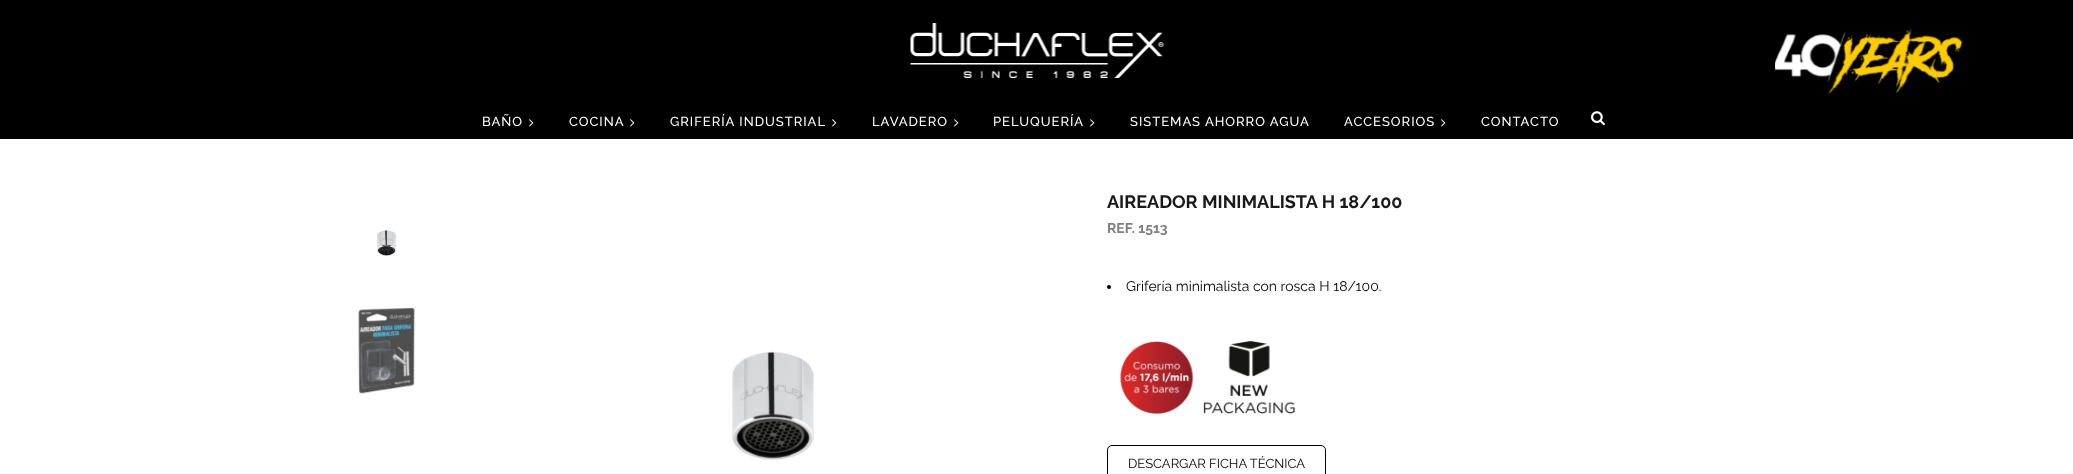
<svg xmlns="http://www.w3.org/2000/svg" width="2073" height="474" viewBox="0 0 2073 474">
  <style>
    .t1 { font: 500 13px Raleway; letter-spacing: 1px; fill: #fff; }
    .t2 { font: bold 18px Raleway; fill: #191919; }
    .t3 { font: bold 14px Raleway; fill: #808080; }
    .t4 { font: 14px Raleway; fill: #000; }
    .t5 { font: 13px Raleway; fill: #000; }
  </style>
  <rect width="100%" height="100%" fill="#fff"/>
  <rect x="0" y="0" width="2073" height="139" fill="#000"/>
  <image x="910" y="23" width="254" height="55" href="images/1.png"/>
  <image x="1775" y="29" width="188" height="65" href="images/2.png"/>
  <text x="482" y="126" class="t1">BAÑO</text>
  <image x="529" y="119" width="5" height="8" href="images/3.png"/>
  <text x="569" y="126" class="t1">COCINA</text>
  <image x="630" y="119" width="5" height="8" href="images/3.png"/>
  <text x="670" y="126" class="t1">GRIFERÍA INDUSTRIAL</text>
  <image x="832" y="119" width="5" height="8" href="images/3.png"/>
  <text x="872" y="126" class="t1">LAVADERO</text>
  <image x="954" y="119" width="5" height="8" href="images/3.png"/>
  <text x="993" y="126" class="t1">PELUQUERÍA</text>
  <image x="1090" y="119" width="5" height="8" href="images/3.png"/>
  <text x="1130" y="126" class="t1">SISTEMAS AHORRO AGUA</text>
  <text x="1344" y="126" class="t1">ACCESORIOS</text>
  <image x="1441" y="119" width="5" height="8" href="images/3.png"/>
  <text x="1481" y="126" class="t1">CONTACTO</text>
  <image x="1591" y="111" width="14" height="15" href="images/4.png"/>
  <image x="377" y="230" width="20" height="26" href="images/5.png"/>
  <image x="358" y="307" width="57" height="87" href="images/6.png"/>
  <image x="732" y="351" width="82" height="109" href="images/7.png"/>
  <text x="1107" y="208" class="t2">AIREADOR MINIMALISTA H 18/100</text>
  <text x="1107" y="233" class="t3">REF. 1513</text>
  <circle cx="1109" cy="287" r="2" fill="#000"/>
  <text x="1126" y="291" class="t4">Grifería minimalista con rosca H 18/100.</text>
  <image x="1120" y="341" width="74" height="73" href="images/8.png"/>
  <image x="1203" y="341" width="93" height="73" href="images/9.png"/>
  <rect x="1107.5" y="445.5" width="218" height="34" rx="4.5" fill="none" stroke="#000"/>
  <text x="1128" y="468" class="t5">DESCARGAR FICHA TÉCNICA</text>
</svg>
